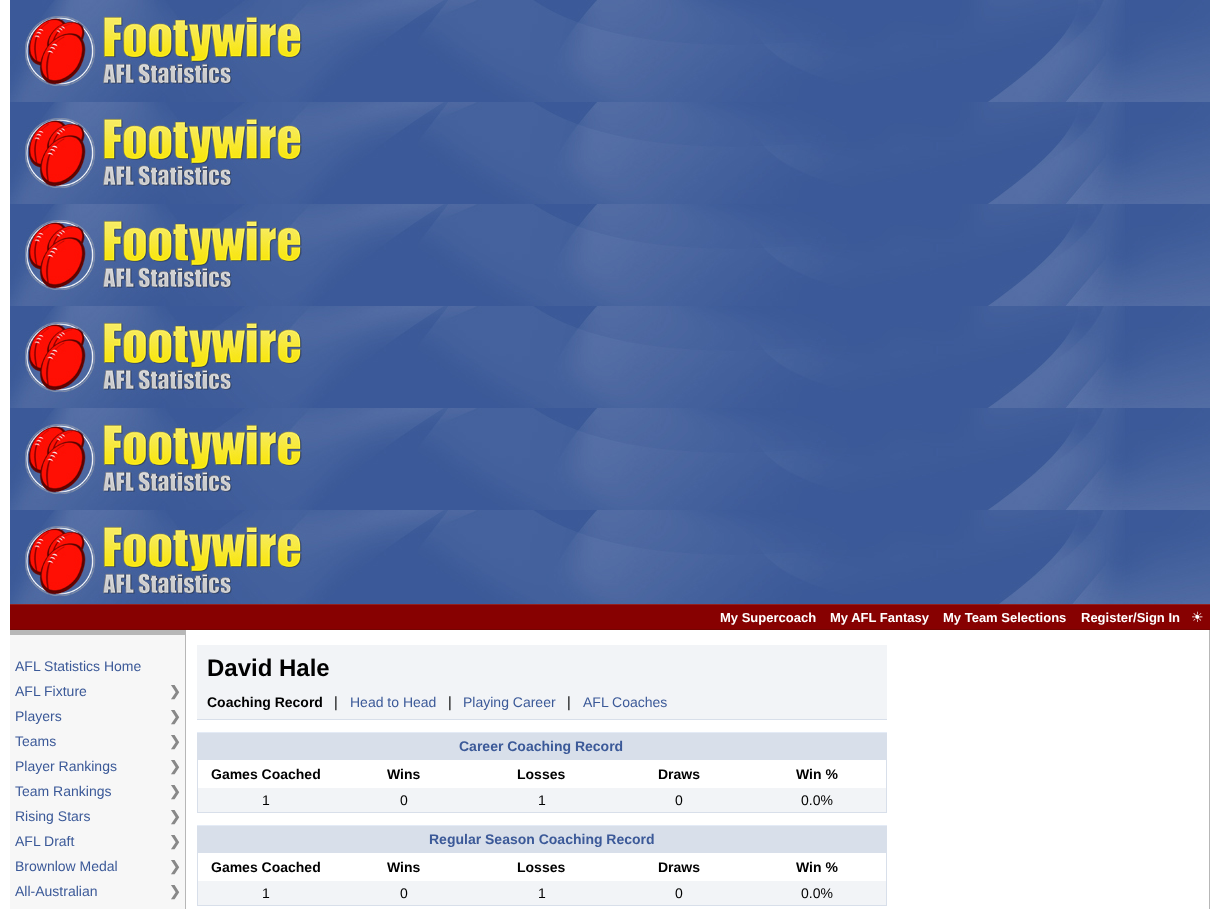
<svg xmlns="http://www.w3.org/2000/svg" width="1219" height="909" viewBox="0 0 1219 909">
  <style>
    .t1 { font: bold 13px Liberation Sans; fill: #fff; }
    .t2 { font: 14px DejaVu Sans; fill: #fff; }
    .t3 { font: 14px Liberation Sans; fill: #3b5998; }
    .t4 { font: bold 14px DejaVu Sans; fill: #888; }
    .t5 { font: bold 24px Liberation Sans; fill: #000; }
    .t6 { font: bold 14px Liberation Sans; fill: #000; }
    .t7 { font: 14px DejaVu Sans; fill: #000; }
    .t8 { font: bold 14px Liberation Sans; fill: #3b5998; }
    .t9 { font: 14px Liberation Sans; fill: #000; }
  </style>
  <rect width="100%" height="100%" fill="#fff"/>
  <image x="10" y="0" width="1200" height="604" href="images/1.png"/>
  <rect x="10" y="605" width="1200" height="24" fill="#870101"/>
  <rect x="10" y="604" width="1200" height="1" fill="#92201e"/>
  <rect x="10" y="629" width="1200" height="1" fill="#760402"/>
  <text x="720" y="622" class="t1">My Supercoach</text>
  <text x="830" y="622" class="t1">My AFL Fantasy</text>
  <text x="943" y="622" class="t1">My Team Selections</text>
  <text x="1081" y="622" class="t1">Register/Sign In</text>
  <text x="1191" y="622" class="t2">☀</text>
  <rect x="10" y="635" width="175" height="274" fill="#f7f7f7"/>
  <rect x="10" y="630" width="175" height="5" fill="#b7b7b7"/>
  <text x="15" y="671" class="t3">AFL Statistics Home</text>
  <text x="15" y="696" class="t3">AFL Fixture</text>
  <text x="169" y="696" class="t4">❯</text>
  <text x="15" y="721" class="t3">Players</text>
  <text x="169" y="721" class="t4">❯</text>
  <text x="15" y="746" class="t3">Teams</text>
  <text x="169" y="746" class="t4">❯</text>
  <text x="15" y="771" class="t3">Player Rankings</text>
  <text x="169" y="771" class="t4">❯</text>
  <text x="15" y="796" class="t3">Team Rankings</text>
  <text x="169" y="796" class="t4">❯</text>
  <text x="15" y="821" class="t3">Rising Stars</text>
  <text x="169" y="821" class="t4">❯</text>
  <text x="15" y="846" class="t3">AFL Draft</text>
  <text x="169" y="846" class="t4">❯</text>
  <text x="15" y="871" class="t3">Brownlow Medal</text>
  <text x="169" y="871" class="t4">❯</text>
  <text x="15" y="896" class="t3">All-Australian</text>
  <text x="169" y="896" class="t4">❯</text>
  <rect x="185" y="630" width="1" height="279" fill="#b7b7b7"/>
  <rect x="197" y="645" width="10" height="74" fill="#f2f4f7"/>
  <rect x="207" y="645" width="670" height="45" fill="#f2f4f7"/>
  <text x="207" y="676" class="t5">David Hale</text>
  <rect x="877" y="645" width="10" height="69" fill="#f2f4f7"/>
  <rect x="207" y="690" width="670" height="24" fill="#f2f4f7"/>
  <text x="207" y="707" class="t6">Coaching Record</text>
  <text x="330" y="707" class="t7">❘</text>
  <text x="350" y="707" class="t3">Head to Head</text>
  <text x="444" y="707" class="t7">❘</text>
  <text x="463" y="707" class="t3">Playing Career</text>
  <text x="563" y="707" class="t7">❘</text>
  <text x="583" y="707" class="t3">AFL Coaches</text>
  <rect x="207" y="714" width="680" height="5" fill="#f2f4f7"/>
  <rect x="197" y="719" width="690" height="1" fill="#d8dfea"/>
  <rect x="197" y="733" width="690" height="27" fill="#d8dfea"/>
  <rect x="197" y="732" width="690" height="1" fill="#e4ebf6"/>
  <text x="459" y="751" class="t8">Career Coaching Record</text>
  <rect x="197" y="760" width="1" height="52" fill="#d8dfea"/>
  <text x="211" y="779" class="t6">Games Coached</text>
  <text x="387" y="779" class="t6">Wins</text>
  <text x="517" y="779" class="t6">Losses</text>
  <text x="658" y="779" class="t6">Draws</text>
  <text x="796" y="779" class="t6">Win %</text>
  <rect x="198" y="788" width="688" height="24" fill="#f2f4f7"/>
  <text x="262" y="805" class="t9">1</text>
  <text x="400" y="805" class="t9">0</text>
  <text x="538" y="805" class="t9">1</text>
  <text x="675" y="805" class="t9">0</text>
  <text x="801" y="805" class="t9">0.0%</text>
  <rect x="886" y="760" width="1" height="52" fill="#d8dfea"/>
  <rect x="197" y="812" width="690" height="1" fill="#d8dfea"/>
  <rect x="197" y="826" width="690" height="27" fill="#d8dfea"/>
  <rect x="197" y="825" width="690" height="1" fill="#e4ebf6"/>
  <text x="429" y="844" class="t8">Regular Season Coaching Record</text>
  <rect x="197" y="853" width="1" height="52" fill="#d8dfea"/>
  <text x="211" y="872" class="t6">Games Coached</text>
  <text x="387" y="872" class="t6">Wins</text>
  <text x="517" y="872" class="t6">Losses</text>
  <text x="658" y="872" class="t6">Draws</text>
  <text x="796" y="872" class="t6">Win %</text>
  <rect x="198" y="881" width="688" height="24" fill="#f2f4f7"/>
  <text x="262" y="898" class="t9">1</text>
  <text x="400" y="898" class="t9">0</text>
  <text x="538" y="898" class="t9">1</text>
  <text x="675" y="898" class="t9">0</text>
  <text x="801" y="898" class="t9">0.0%</text>
  <rect x="886" y="853" width="1" height="52" fill="#d8dfea"/>
  <rect x="197" y="905" width="690" height="1" fill="#d8dfea"/>
  <rect x="1209" y="630" width="1" height="279" fill="#b7b7b7"/>
</svg>
